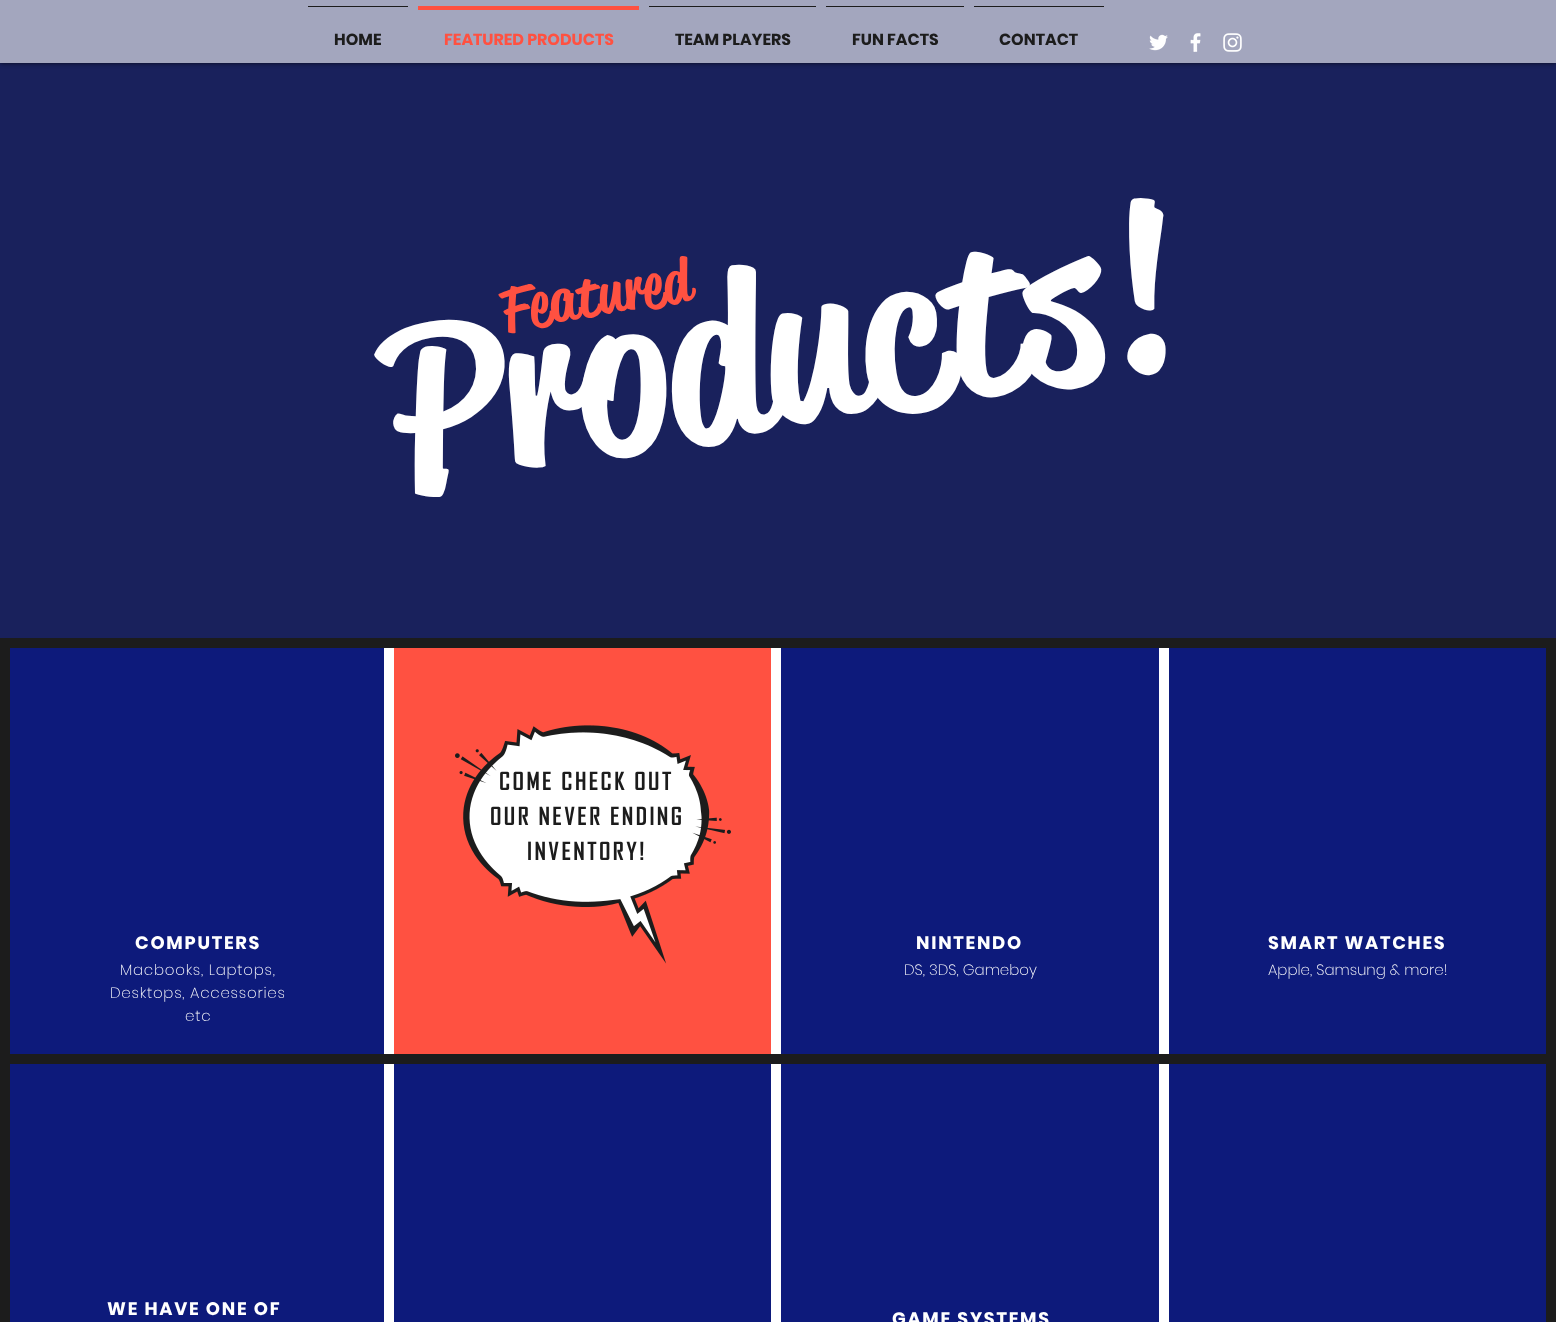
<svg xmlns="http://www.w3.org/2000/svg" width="1556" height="1322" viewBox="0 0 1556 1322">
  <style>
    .t1 { font: bold 16px Poppins; fill: #1c1c1c; }
    .t2 { font: bold 16px Poppins; fill: #ff5141; }
    .t3 { font: 500 220px 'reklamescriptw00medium'; fill: #fff; }
    .t4 { font: 500 59px 'reklamescriptw00medium'; fill: #ff5141; }
    .t5 { font: bold 24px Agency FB; letter-spacing: 2.4px; fill: #1c1c1c; }
    .t6 { font: bold 18px Poppins; letter-spacing: 1.75px; fill: #fff; }
    .t7 { font: 200 15px Poppins; letter-spacing: 0.75px; fill: #fff; }
    .t8 { font: 200 15px Poppins; fill: #fff; }
  </style>
  <rect width="100%" height="100%" fill="#1c1c1c"/>
  <rect x="0" y="63" width="1556" height="575" fill="#19215c"/>
  <rect x="0" y="0" width="1556" height="63" fill="#000000b3" filter="blur(2.5px)"/>
  <rect x="0" y="0" width="1556" height="63" fill="#a3a6be"/>
  <rect x="308" y="6" width="100" height="1" fill="#1c1c1c"/>
  <text x="334" y="45" class="t1">HOME</text>
  <rect x="418" y="6" width="221" height="4" fill="#ff5141"/>
  <text x="444" y="45" class="t2">FEATURED PRODUCTS</text>
  <rect x="649" y="6" width="167" height="1" fill="#1c1c1c"/>
  <text x="675" y="45" class="t1">TEAM PLAYERS</text>
  <rect x="826" y="6" width="138" height="1" fill="#1c1c1c"/>
  <text x="852" y="45" class="t1">FUN FACTS</text>
  <rect x="974" y="6" width="130" height="1" fill="#1c1c1c"/>
  <text x="999" y="45" class="t1">CONTACT</text>
  <image x="1149" y="34" width="19" height="17" href="images/1.png"/>
  <image x="1190" y="33" width="11" height="19" href="images/2.png"/>
  <image x="1223" y="33" width="19" height="19" href="images/3.png"/>
  <text x="399" y="487" transform="rotate(-9.3 399 487)" class="t3">Products!</text>
  <text x="504" y="330" transform="rotate(-9.3 504 330)" class="t4">Featured</text>
  <rect x="384" y="648" width="785" height="406" fill="#fff"/>
  <rect x="394" y="648" width="377" height="406" fill="#ff5141"/>
  <image x="455" y="725" width="276" height="239" href="images/4.png"/>
  <text x="499" y="790" class="t5">COME CHECK OUT</text>
  <text x="490" y="825" class="t5">OUR NEVER ENDING</text>
  <text x="527" y="860" class="t5">INVENTORY!</text>
  <rect x="10" y="648" width="374" height="406" fill="#0d1a7b"/>
  <text x="135" y="949" class="t6">COMPUTERS</text>
  <text x="120" y="975" class="t7">Macbooks, Laptops,</text>
  <text x="110" y="998" class="t7">Desktops, Accessories</text>
  <text x="185" y="1021" class="t7">etc</text>
  <rect x="781" y="648" width="378" height="406" fill="#0d1a7b"/>
  <text x="916" y="949" class="t6">NINTENDO</text>
  <text x="904" y="975" class="t8">DS, 3DS, Gameboy</text>
  <rect x="1169" y="648" width="377" height="406" fill="#0d1a7b"/>
  <text x="1268" y="949" class="t6">SMART WATCHES</text>
  <text x="1268" y="975" class="t8">Apple, Samsung &amp; more!</text>
  <rect x="384" y="1064" width="785" height="258" fill="#fff"/>
  <rect x="10" y="1064" width="374" height="258" fill="#0d1a7b"/>
  <text x="107" y="1315" class="t6">WE HAVE ONE OF</text>
  <rect x="394" y="1064" width="377" height="258" fill="#0d1a7b"/>
  <rect x="1169" y="1064" width="377" height="258" fill="#0d1a7b"/>
  <rect x="781" y="1064" width="378" height="258" fill="#0d1a7b"/>
  <text x="892" y="1325" class="t6">GAME SYSTEMS</text>
</svg>
